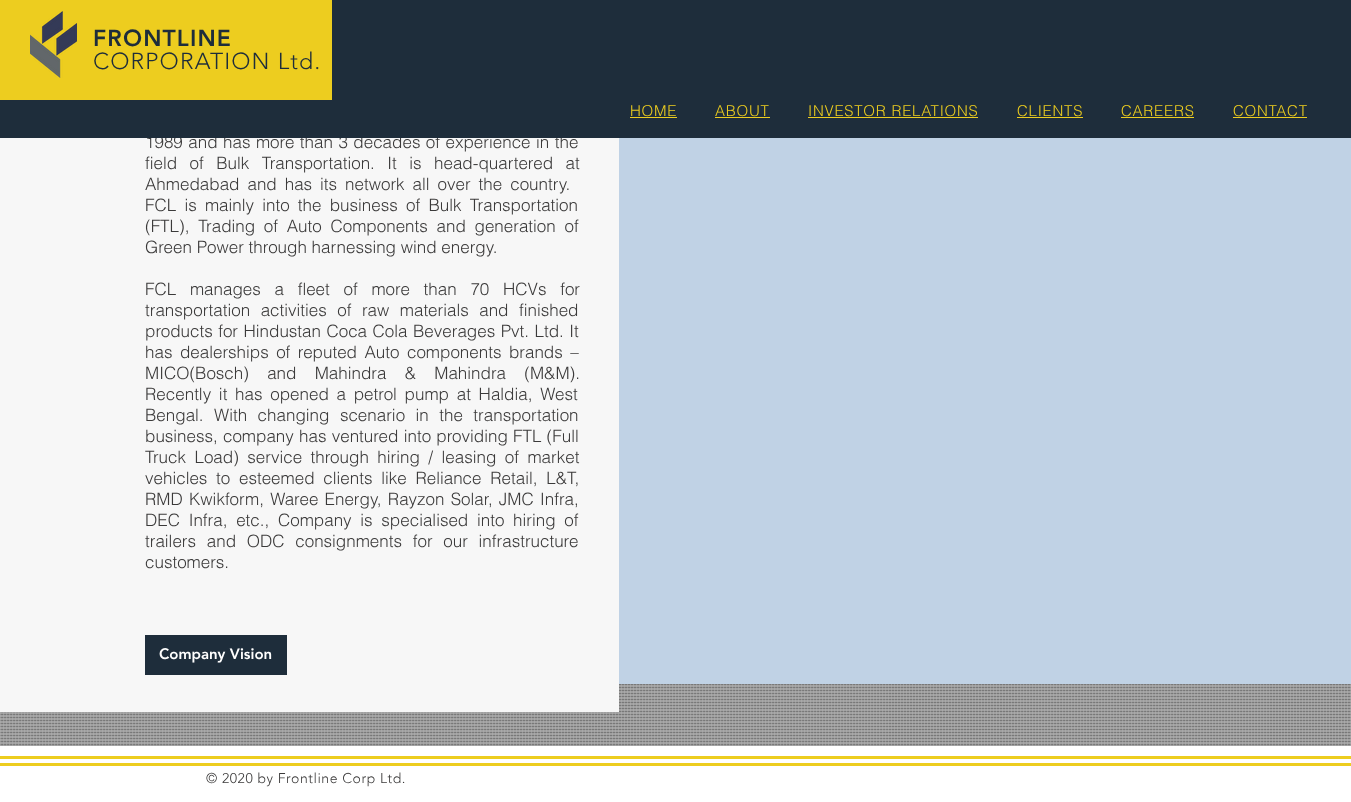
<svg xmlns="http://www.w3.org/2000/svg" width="1351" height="802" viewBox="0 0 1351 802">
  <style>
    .t1 { font: 300 17px helvetica; fill: #3b3a3a; }
    .t2 { font: 900 23px 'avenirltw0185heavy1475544'; letter-spacing: 1.1px; fill: #1e2d3b; }
    .t3 { font: 300 23px 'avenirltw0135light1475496'; letter-spacing: 1.1px; fill: #1e2d3b; }
    .t4 { font: 300 15px helvetica; letter-spacing: 0.75px; fill: #edcd1f; }
    .t5 { font: 900 15px 'avenirltw0185heavy1475544'; fill: #fff; }
    .t6 { font: 300 14px 'avenirltw0135light1475496'; letter-spacing: 0.55px; fill: #3b3a3a; }
  </style>
  <rect width="100%" height="100%" fill="#a9a9a9"/>
  <image x="0" y="684" width="1351" height="62" href="images/2.png"/>
  <rect x="0" y="138" width="619" height="574" fill="#f7f7f7"/>
  <text x="145" y="148" word-spacing="0.75" class="t1">1989 and has more than 3 decades of experience in the</text>
  <rect x="0" y="0" width="1351" height="138" fill="#1e2d3b"/>
  <rect x="0" y="0" width="332" height="100" fill="#edcd1f"/>
  <image x="30" y="11" width="47" height="67" href="images/1.png"/>
  <text x="93" y="46" class="t2">FRONTLINE</text>
  <text x="93" y="69" class="t3">CORPORATION Ltd.</text>
  <text x="630" y="116" class="t4">HOME</text>
  <rect x="630" y="117" width="47" height="1" fill="#edcd1f"/>
  <text x="715" y="116" class="t4">ABOUT</text>
  <rect x="715" y="117" width="55" height="1" fill="#edcd1f"/>
  <text x="808" y="116" class="t4">INVESTOR RELATIONS</text>
  <rect x="808" y="117" width="170" height="1" fill="#edcd1f"/>
  <text x="1017" y="116" class="t4">CLIENTS</text>
  <rect x="1017" y="117" width="66" height="1" fill="#edcd1f"/>
  <text x="1121" y="116" class="t4">CAREERS</text>
  <rect x="1121" y="117" width="73" height="1" fill="#edcd1f"/>
  <text x="1233" y="116" class="t4">CONTACT</text>
  <rect x="1233" y="117" width="74" height="1" fill="#edcd1f"/>
  <text x="145" y="169" word-spacing="7.75" class="t1">field of Bulk Transportation. It is head-quartered at</text>
  <text x="145" y="190" word-spacing="3.25" class="t1">Ahmedabad and has its network all over the country.</text>
  <text x="145" y="211" word-spacing="3.5" class="t1">FCL is mainly into the business of Bulk Transportation</text>
  <text x="145" y="232" word-spacing="4" class="t1">(FTL), Trading of Auto Components and generation of</text>
  <text x="145" y="253" class="t1">Green Power through harnessing wind energy.</text>
  <text x="145" y="295" word-spacing="9" class="t1">FCL manages a fleet of more than 70 HCVs for</text>
  <text x="145" y="316" word-spacing="5.75" class="t1">transportation activities of raw materials and finished</text>
  <text x="145" y="337" word-spacing="0.75" class="t1">products for Hindustan Coca Cola Beverages Pvt. Ltd. It</text>
  <text x="145" y="358" word-spacing="2.75" class="t1">has dealerships of reputed Auto components brands –</text>
  <text x="145" y="379" word-spacing="13.5" class="t1">MICO(Bosch) and Mahindra &amp; Mahindra (M&amp;M).</text>
  <text x="145" y="400" word-spacing="3" class="t1">Recently it has opened a petrol pump at Haldia, West</text>
  <text x="145" y="421" word-spacing="5.75" class="t1">Bengal. With changing scenario in the transportation</text>
  <text x="145" y="442" word-spacing="0.5" class="t1">business, company has ventured into providing FTL (Full</text>
  <text x="145" y="463" word-spacing="3.75" class="t1">Truck Load) service through hiring / leasing of market</text>
  <text x="145" y="484" word-spacing="4" class="t1">vehicles to esteemed clients like Reliance Retail, L&amp;T,</text>
  <text x="145" y="505" word-spacing="1.5" class="t1">RMD Kwikform, Waree Energy, Rayzon Solar, JMC Infra,</text>
  <text x="145" y="526" word-spacing="4" class="t1">DEC Infra, etc., Company is specialised into hiring of</text>
  <text x="145" y="547" word-spacing="6" class="t1">trailers and ODC consignments for our infrastructure</text>
  <text x="145" y="568" class="t1">customers.</text>
  <rect x="145" y="635" width="142" height="40" fill="#1e2d3b"/>
  <text x="159" y="659" class="t5">Company Vision</text>
  <rect x="619" y="138" width="732" height="546" fill="#c0d2e5"/>
  <rect x="0" y="746" width="1351" height="56" fill="#fff"/>
  <rect x="0" y="756" width="1351" height="3" fill="#edcd1f"/>
  <rect x="0" y="763" width="1351" height="3" fill="#edcd1f"/>
  <text x="206" y="783" class="t6">© 2020 by Frontline Corp Ltd.</text>
</svg>
